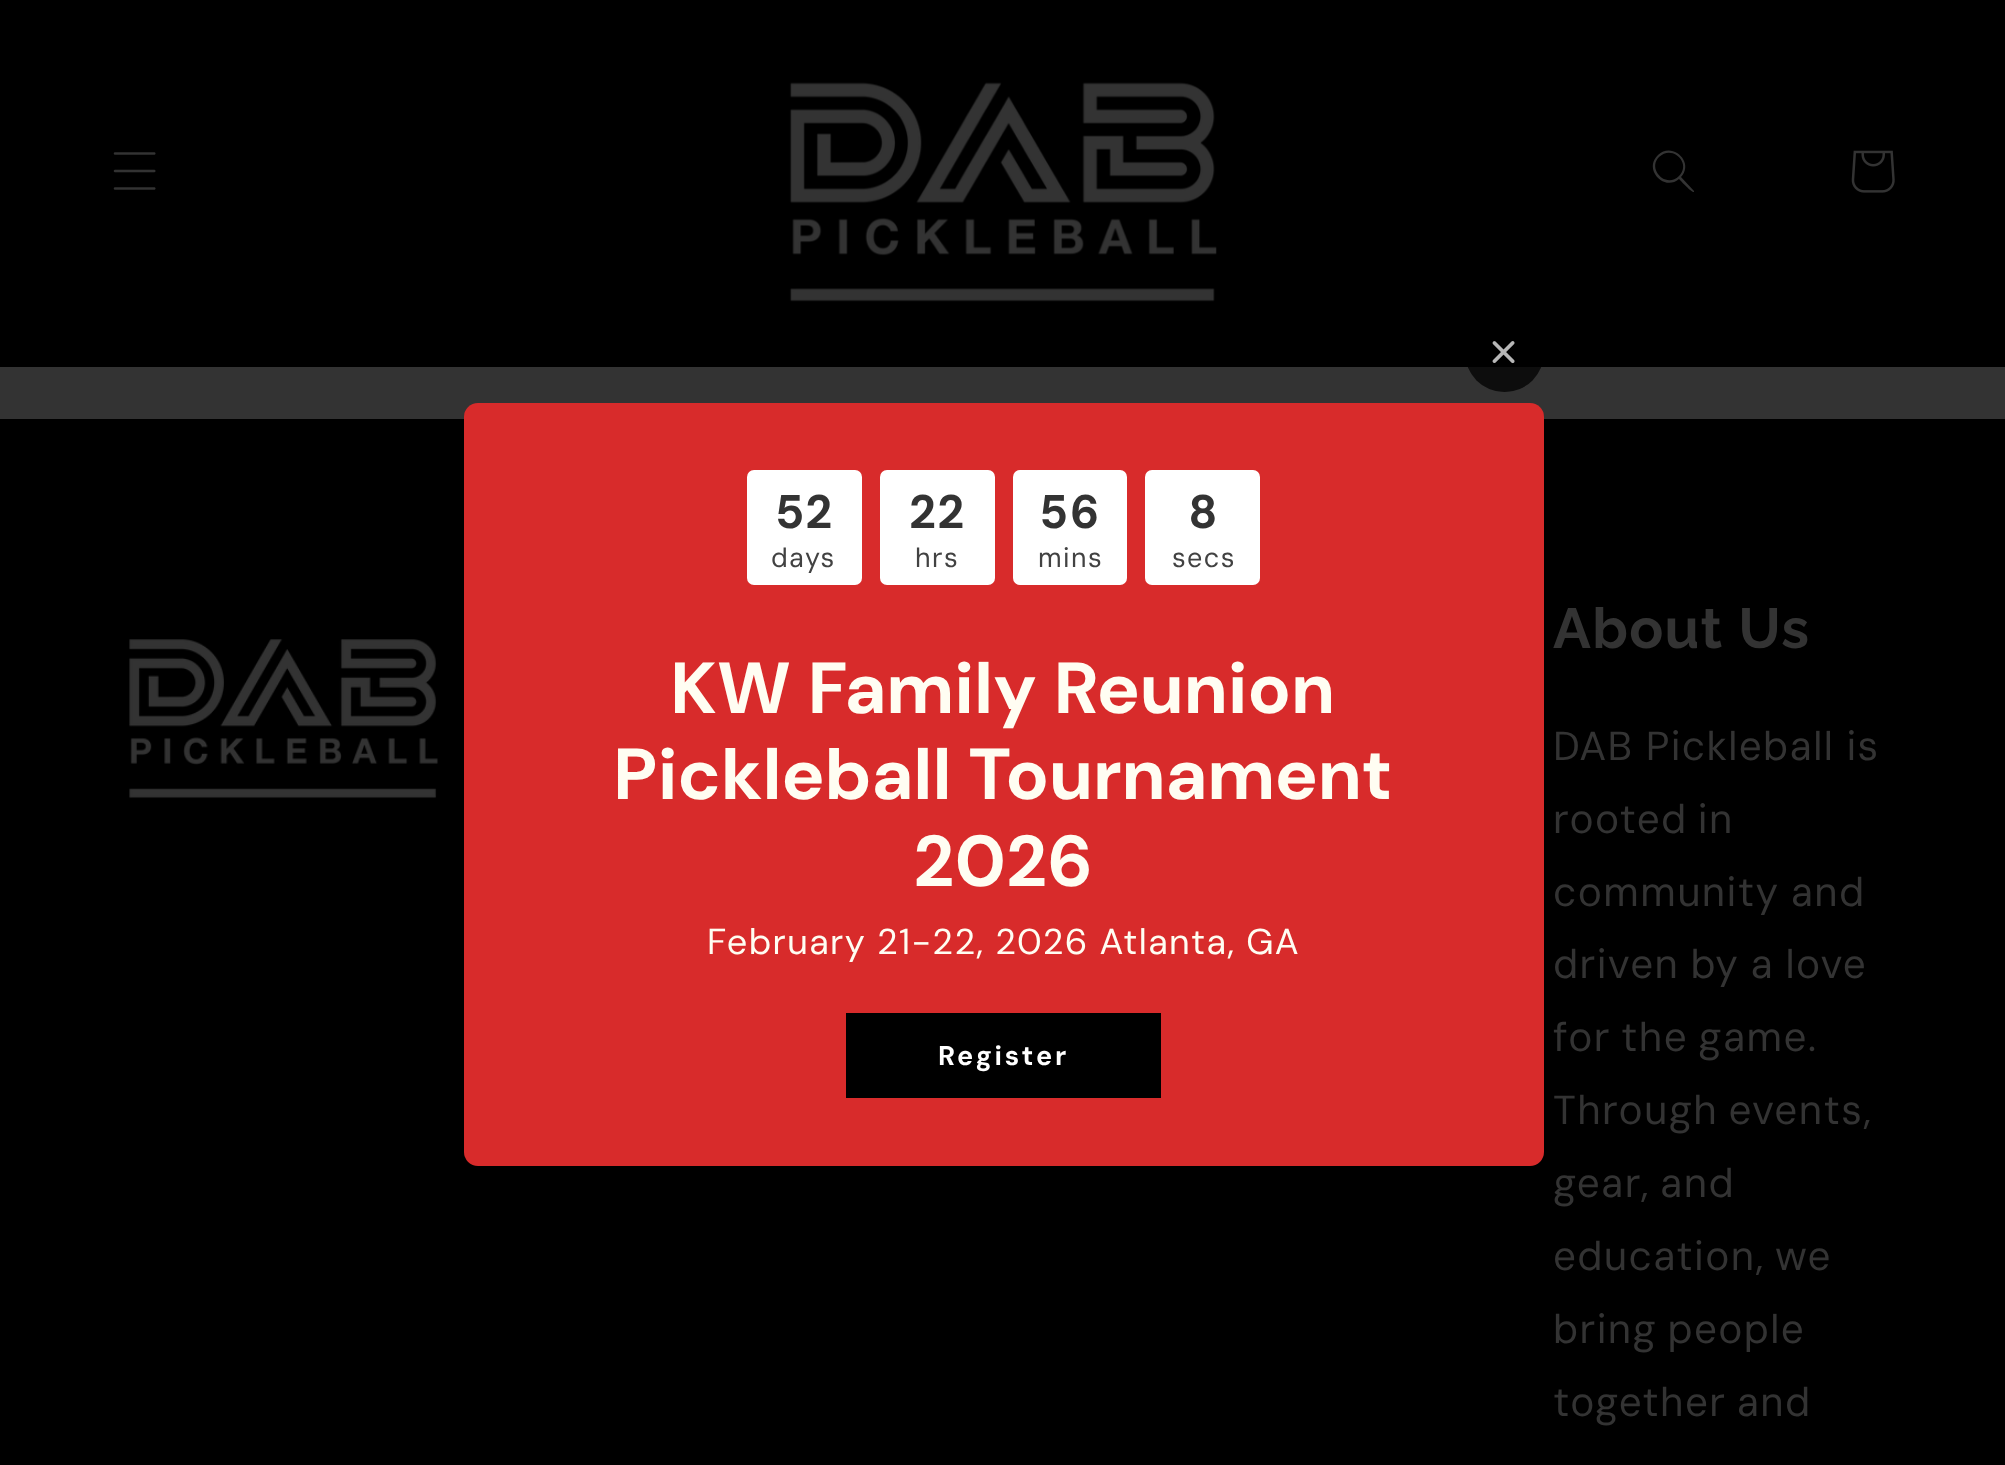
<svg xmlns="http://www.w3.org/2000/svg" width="2005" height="1465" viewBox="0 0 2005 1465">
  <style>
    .t1 { font: bold 47px DM Sans; letter-spacing: 1.35px; fill: #333; }
    .t2 { font: 27px DM Sans; letter-spacing: 1.35px; fill: #424242; }
    .t3 { font: bold 47px 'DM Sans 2'; letter-spacing: 1.35px; fill: #333; }
    .t4 { font: bold 72px 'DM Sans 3'; letter-spacing: 1.35px; fill: #fffdf2; }
    .t5 { font: 36px 'DM Sans 2'; letter-spacing: 1.35px; fill: #fffdf2; }
    .t6 { font: bold 27px 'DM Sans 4'; letter-spacing: 2.75px; fill: #fff; }
    .t7 { font: bold 56.25px Raleway; letter-spacing: 1.35px; fill: #333; }
    .t8 { font: 40.5px DM Sans; letter-spacing: 1.35px; fill: #333; }
  </style>
  <rect width="100%" height="100%" fill="#333"/>
  <rect x="0" y="0" width="2005" height="367" fill="#000"/>
  <image x="113" y="152" width="43" height="38" href="images/1.png"/>
  <image x="789" y="82" width="428" height="220" href="images/2.png"/>
  <path d="M1679 176C1666 189 1647 169 1659 157C1672 144 1692 163 1679 176ZM1679 179C1664 192 1643 169 1658 155C1672 141 1695 162 1681 177L1694 191V192C1692 193 1681 181 1679 179Z" fill="#333" fill-rule="evenodd"/>
  <image x="1851" y="150" width="44" height="43" href="images/3.png"/>
  <circle cx="1504.5" cy="352.5" r="39.5" fill="#0000007d"/>
  <image x="1492" y="341" width="23" height="23" href="images/4.png"/>
  <circle cx="1504.5" cy="352.5" r="39.5" fill="#0000007d"/>
  <image x="1492" y="341" width="23" height="23" href="images/5.png"/>
  <rect x="0" y="419" width="2005" height="1046" fill="#000"/>
  <rect x="464" y="403" width="1080" height="763" rx="14" fill="#d82b2b"/>
  <rect x="747" y="470" width="115" height="115" rx="7" fill="#fff"/>
  <text x="775" y="528" class="t1">52</text>
  <text x="771" y="567" class="t2">days</text>
  <rect x="880" y="470" width="115" height="115" rx="7" fill="#fff"/>
  <text x="909" y="528" class="t1">22</text>
  <text x="915" y="567" class="t2">hrs</text>
  <rect x="1013" y="470" width="114" height="115" rx="7" fill="#fff"/>
  <text x="1039" y="528" class="t3">56</text>
  <text x="1038" y="567" class="t2">mins</text>
  <rect x="1145" y="470" width="115" height="115" rx="7" fill="#fff"/>
  <text x="1188" y="528" class="t3">8</text>
  <text x="1172" y="567" class="t2">secs</text>
  <text x="671" y="713" class="t4">KW Family Reunion</text>
  <text x="614" y="799" class="t4">Pickleball Tournament</text>
  <text x="914" y="886" class="t4">2026</text>
  <text x="707" y="954" class="t5">February 21-22, 2026 Atlanta, GA</text>
  <rect x="846" y="1013" width="315" height="85" fill="#000"/>
  <text x="938" y="1065" class="t6">Register</text>
  <image x="129" y="639" width="310" height="160" href="images/6.png"/>
  <text x="1553" y="648" class="t7">About Us</text>
  <text x="1553" y="760" class="t8">DAB Pickleball is</text>
  <text x="1553" y="833" word-spacing="-2" class="t8">rooted in</text>
  <text x="1553" y="906" word-spacing="-1" class="t8">community and</text>
  <text x="1553" y="978" word-spacing="-1" class="t8">driven by a love</text>
  <text x="1553" y="1051" word-spacing="-2" class="t8">for the game.</text>
  <text x="1553" y="1124" word-spacing="-2" class="t8">Through events,</text>
  <text x="1553" y="1197" word-spacing="-2" class="t8">gear, and</text>
  <text x="1553" y="1270" word-spacing="-2" class="t8">education, we</text>
  <text x="1553" y="1343" word-spacing="-2" class="t8">bring people</text>
  <text x="1553" y="1416" word-spacing="-2" class="t8">together and</text>
</svg>
